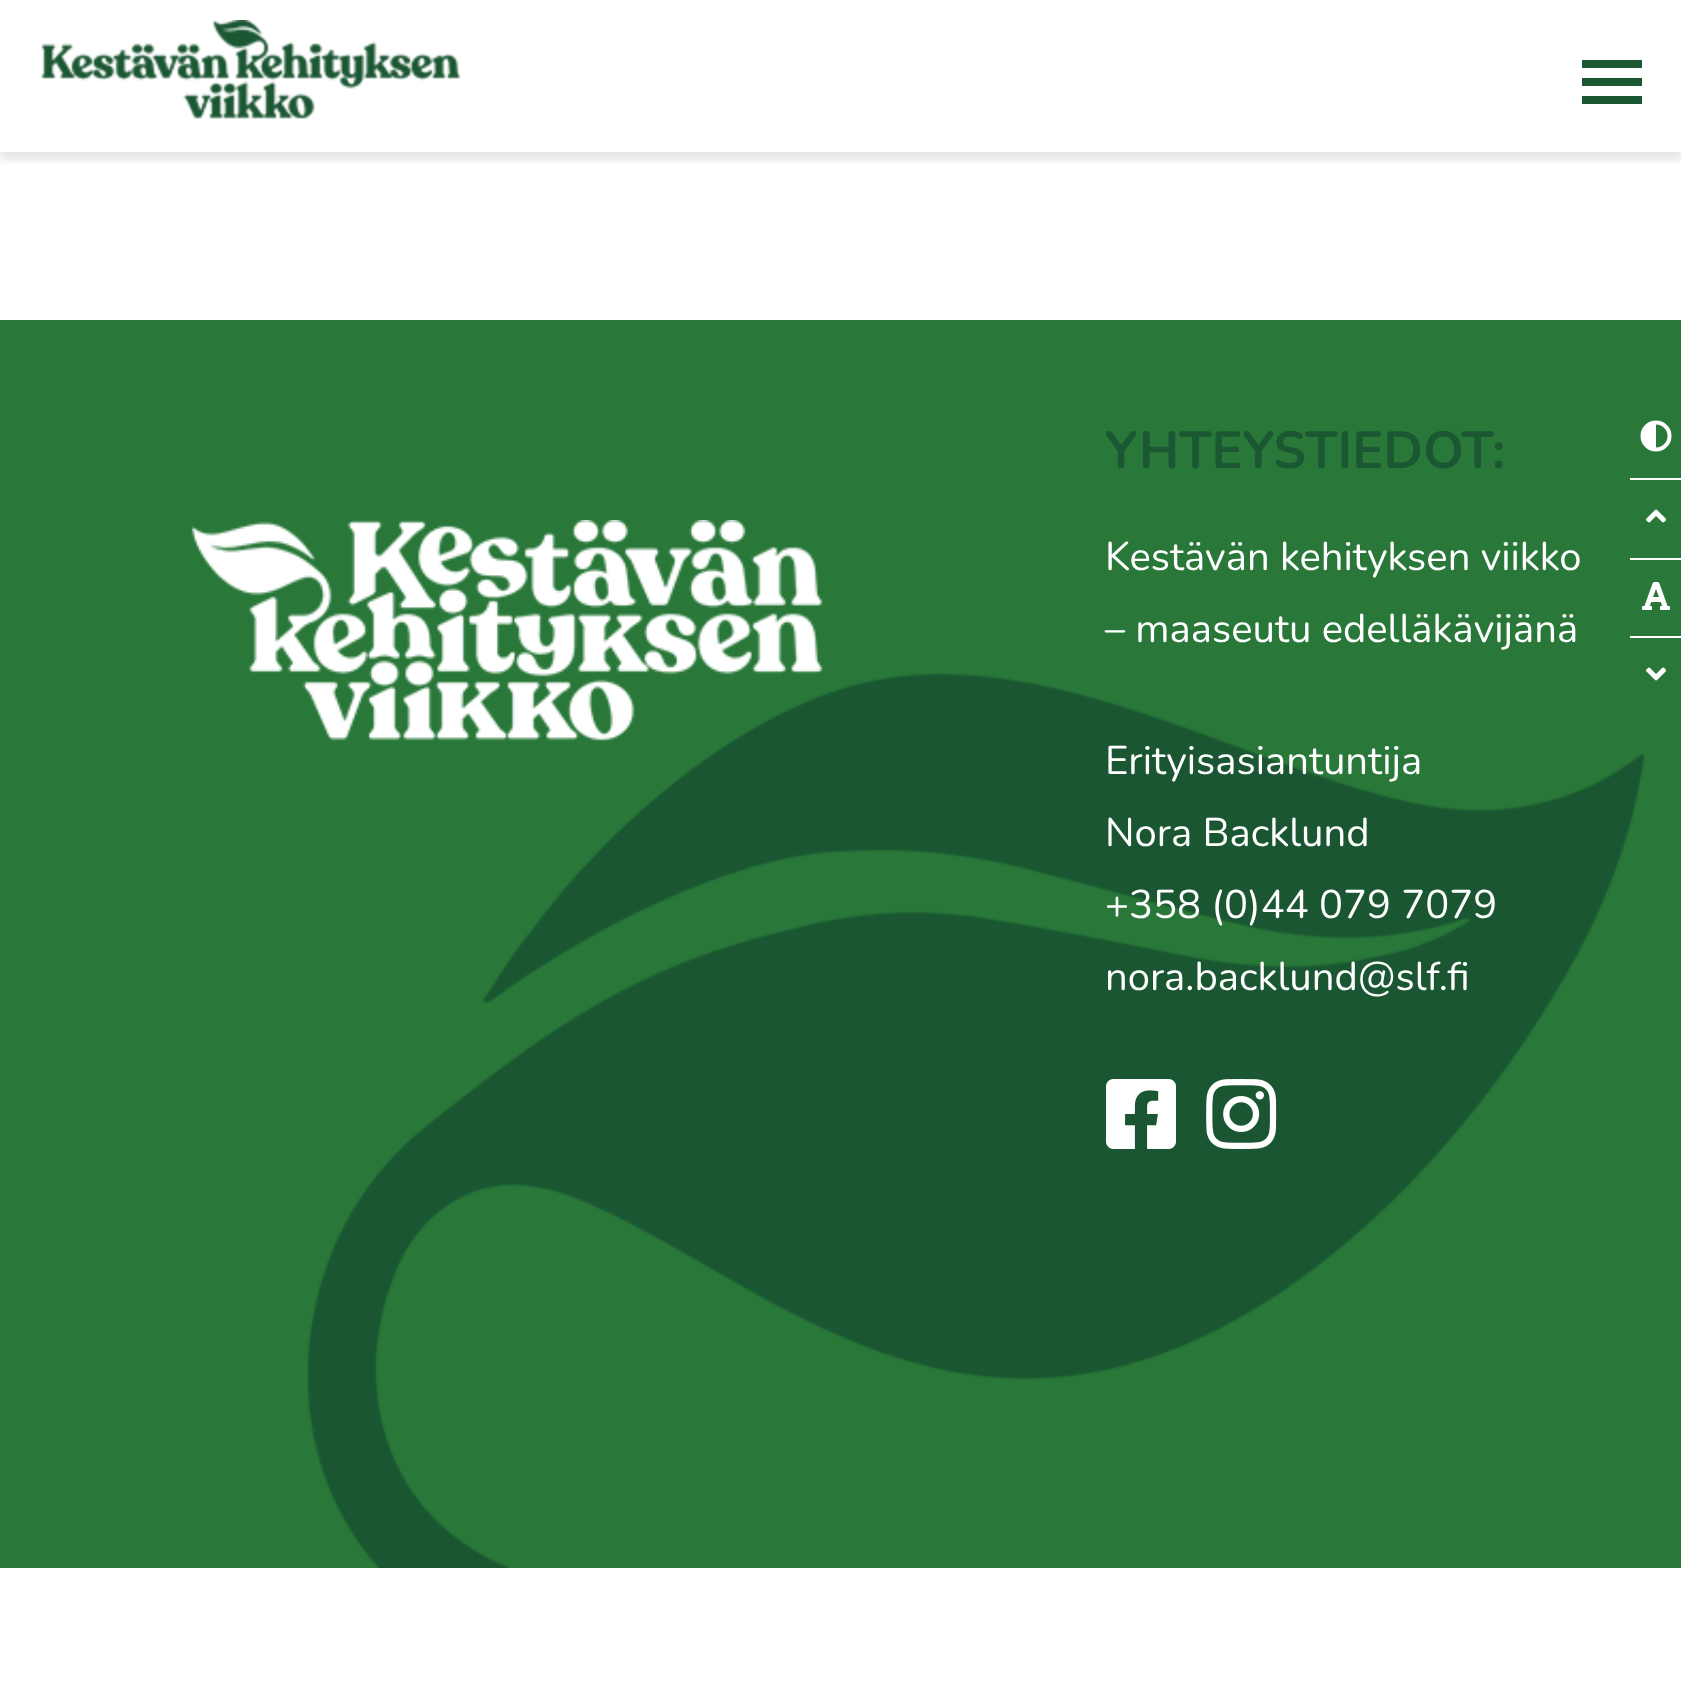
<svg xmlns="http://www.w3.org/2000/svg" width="1681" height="1705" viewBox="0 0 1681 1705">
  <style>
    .t1 { font: bold 52px Nunito; fill: #1c5733; }
    .t2 { font: 40px Nunito; fill: #fff; }
  </style>
  <defs>
    <clipPath id="clip1"><rect x="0" y="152" width="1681" height="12"/></clipPath>
  </defs>
  <rect width="100%" height="100%" fill="#fff"/>
  <g clip-path="url(#clip1)">
    <rect x="0" y="8" width="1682" height="152" fill="#0000001a" filter="blur(5px)"/>
  </g>
  <image x="41" y="20" width="419" height="99" href="images/1.png"/>
  <rect x="1582" y="60" width="60" height="8" fill="#1c5733"/>
  <rect x="1582" y="78" width="60" height="8" fill="#1c5733"/>
  <rect x="1582" y="96" width="60" height="8" fill="#1c5733"/>
  <rect x="0" y="320" width="1681" height="1248" fill="#297839"/>
  <image x="307" y="673" width="1338" height="895" href="images/2.png"/>
  <image x="191" y="520" width="632" height="221" href="images/3.png"/>
  <text x="1105" y="468" class="t1">YHTEYSTIEDOT:</text>
  <text x="1105" y="570" class="t2">Kestävän kehityksen viikko</text>
  <text x="1105" y="642" class="t2">– maaseutu edelläkävijänä</text>
  <text x="1105" y="774" class="t2">Erityisasiantuntija</text>
  <text x="1105" y="846" class="t2">Nora Backlund</text>
  <text x="1105" y="918" class="t2">+358 (0)44 079 7079</text>
  <text x="1105" y="990" class="t2">nora.backlund@slf.fi</text>
  <image x="1106" y="1079" width="70" height="70" href="images/4.png"/>
  <image x="1206" y="1079" width="71" height="70" href="images/5.png"/>
  <rect x="1630" y="478" width="51" height="2" fill="#fff"/>
  <image x="1640" y="420" width="32" height="32" href="images/6.png"/>
  <rect x="1630" y="558" width="51" height="2" fill="#fff"/>
  <image x="1646" y="509" width="20" height="14" href="images/7.png"/>
  <rect x="1630" y="636" width="51" height="2" fill="#fff"/>
  <image x="1642" y="582" width="28" height="28" href="images/8.png"/>
  <image x="1646" y="667" width="20" height="14" href="images/9.png"/>
</svg>
